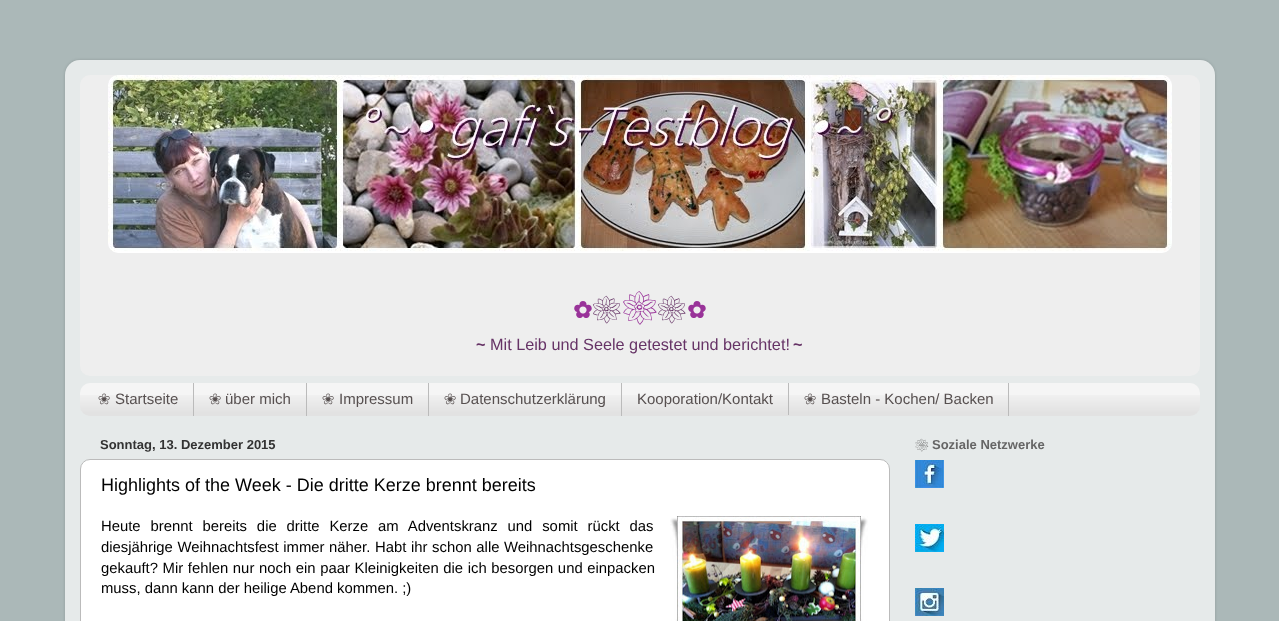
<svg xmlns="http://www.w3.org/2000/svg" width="1279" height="621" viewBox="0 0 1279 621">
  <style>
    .t1 { font: bold 23px DejaVu Sans; fill: #939; }
    .t2 { font: 600 28px FreeSans; fill: #636; }
    .t3 { font: 600 34px FreeSans; fill: #939; }
    .t4 { font: bold 16.25px Liberation Sans; fill: #636; }
    .t5 { font: 16.25px Liberation Sans; fill: #636; }
    .t6 { font: 15px FreeSans; fill: #575050; }
    .t7 { font: 15px Liberation Sans; fill: #575050; }
    .t8 { font: bold 13px Liberation Sans; fill: #333; }
    .t9 { font: 18px Liberation Sans; fill: #000; }
    .t10 { font: 14.85px Liberation Sans; fill: #000; }
    .t11 { font: 600 13px FreeSans; fill: #666; }
    .t12 { font: bold 13px Liberation Sans; fill: #666; }
  </style>
  <defs>
    <clipPath id="clip1"><path d="M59 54H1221V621H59ZM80 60H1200C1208.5 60 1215 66.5 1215 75V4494C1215 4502.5 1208.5 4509 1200 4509H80C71.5 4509 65 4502.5 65 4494V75C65 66.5 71.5 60 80 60Z" clip-rule="evenodd"/></clipPath>
  </defs>
  <rect width="100%" height="100%" fill="#abb8b8"/>
  <g clip-path="url(#clip1)">
    <rect x="65" y="60" width="1150" height="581" rx="15" fill="#00000026" filter="blur(1.5px)"/>
  </g>
  <image x="65" y="60" width="1150" height="561" href="images/1.png"/>
  <rect x="80" y="75" width="1120" height="301" rx="10" fill="#eee"/>
  <image x="108" y="75" width="1064" height="178" href="images/2.png"/>
  <text x="573" y="318" class="t1">✿</text>
  <text x="592" y="318" class="t2">❀</text>
  <text x="622" y="318" class="t3">❀</text>
  <text x="657" y="318" class="t2">❀</text>
  <text x="687" y="318" class="t1">✿</text>
  <text x="476" y="350" class="t4">~</text>
  <text x="490" y="350" class="t5">Mit Leib und Seele getestet und berichtet!</text>
  <text x="793" y="350" class="t4">~</text>
  <rect x="80" y="383" width="1120" height="33" rx="10" fill="#f5f5f5"/>
  <image x="80" y="395" width="1120" height="21" href="images/3.png"/>
  <rect x="193" y="383" width="1" height="33" fill="#bbb"/>
  <text x="98" y="404" class="t6">❀</text>
  <text x="115" y="404" class="t7">Startseite</text>
  <rect x="306" y="383" width="1" height="33" fill="#bbb"/>
  <text x="209" y="404" class="t6">❀</text>
  <text x="225" y="404" class="t7">über mich</text>
  <rect x="428" y="383" width="1" height="33" fill="#bbb"/>
  <text x="322" y="404" class="t6">❀</text>
  <text x="339" y="404" class="t7">Impressum</text>
  <rect x="621" y="383" width="1" height="33" fill="#bbb"/>
  <text x="444" y="404" class="t6">❀</text>
  <text x="460" y="404" class="t7">Datenschutzerklärung</text>
  <rect x="788" y="383" width="1" height="32" fill="#bbb"/>
  <text x="637" y="404" class="t7">Kooporation/Kontakt</text>
  <rect x="1008" y="383" width="1" height="33" fill="#bbb"/>
  <text x="804" y="404" class="t6">❀</text>
  <text x="821" y="404" class="t7">Basteln - Kochen/ Backen</text>
  <text x="100" y="449" class="t8">Sonntag, 13. Dezember 2015</text>
  <rect x="80.5" y="459.5" width="809" height="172" rx="9.5" fill="#fff" stroke="#bbb"/>
  <text x="101" y="491" class="t9">Highlights of the Week - Die dritte Kerze brennt bereits</text>
  <text x="101" y="531" word-spacing="5.75" class="t10">Heute brennt bereits die dritte Kerze am Adventskranz und somit rückt das</text>
  <text x="101" y="552" word-spacing="0.5" class="t10">diesjährige Weihnachtsfest immer näher. Habt ihr schon alle Weihnachtsgeschenke</text>
  <text x="101" y="573" word-spacing="0.5" class="t10">gekauft? Mir fehlen nur noch ein paar Kleinigkeiten die ich besorgen und einpacken</text>
  <text x="101" y="593" class="t10">muss, dann kann der heilige Abend kommen. ;)</text>
  <image x="670" y="516" width="198" height="105" href="images/4.png"/>
  <text x="915" y="449" class="t11">❀</text>
  <text x="932" y="449" class="t12">Soziale Netzwerke</text>
  <image x="915" y="460" width="29" height="28" href="images/5.png"/>
  <image x="915" y="524" width="29" height="28" href="images/6.png"/>
  <image x="915" y="588" width="29" height="28" href="images/7.png"/>
</svg>
